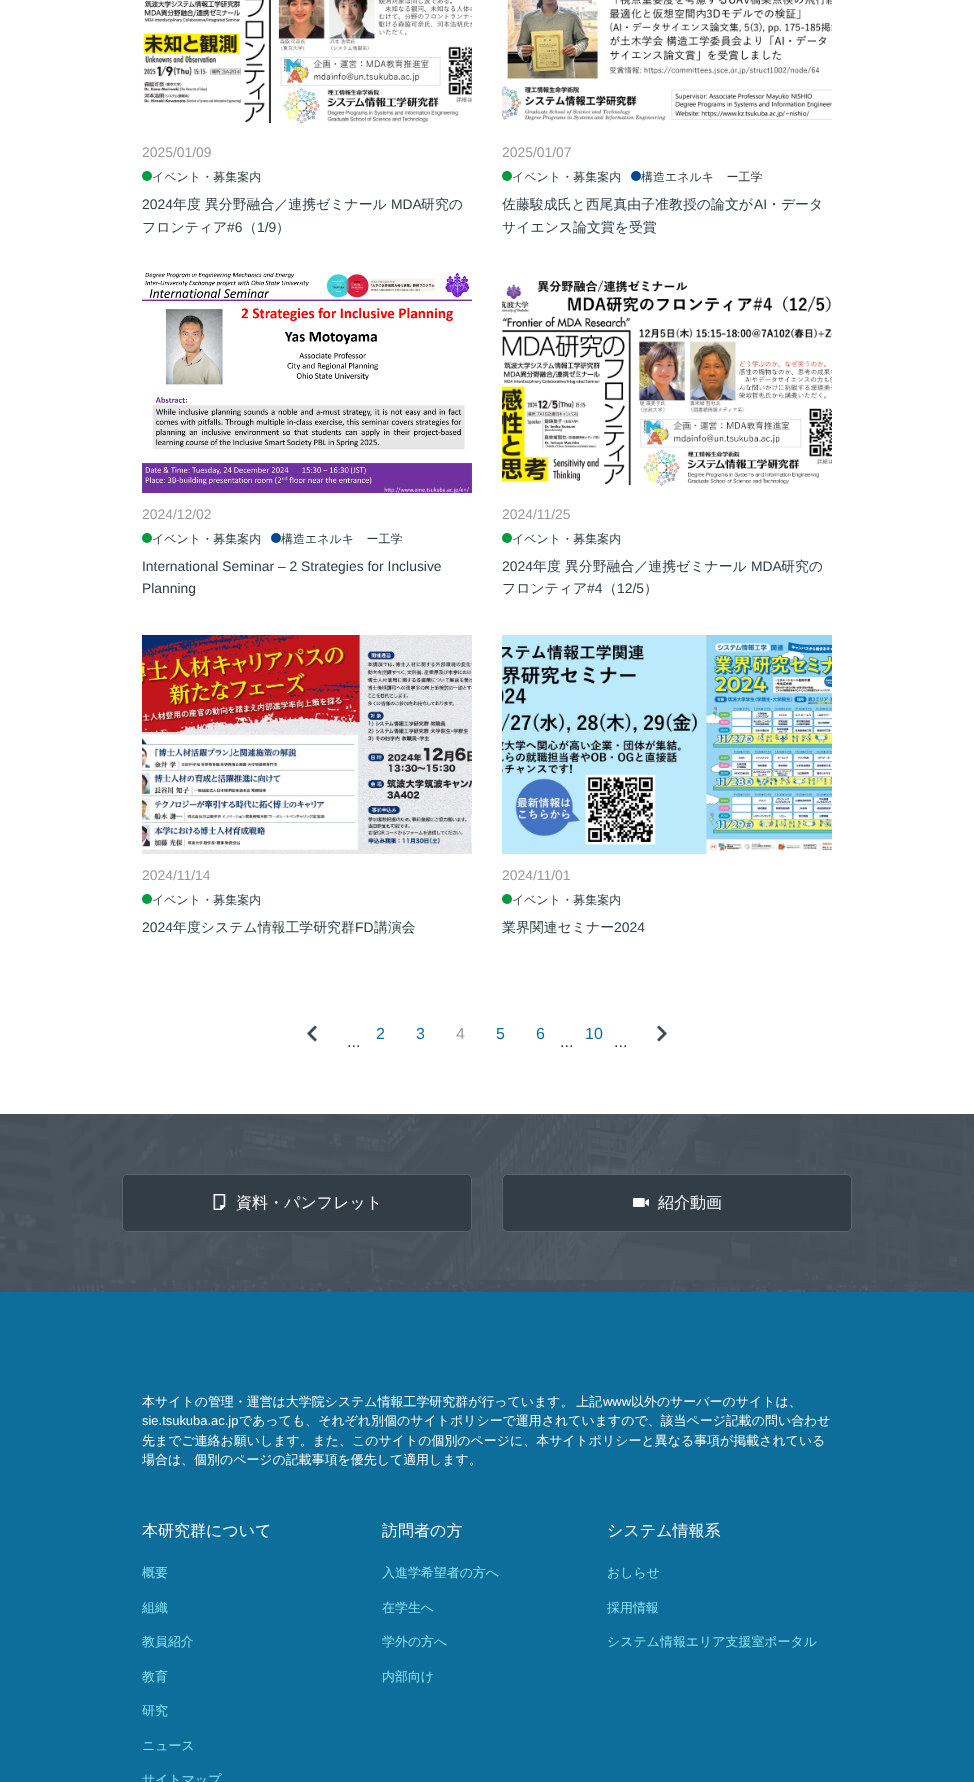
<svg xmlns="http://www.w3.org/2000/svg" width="974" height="1782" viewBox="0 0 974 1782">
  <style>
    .t1 { font: 13.9px Liberation Sans; fill: #999; }
    .t2 { font: 500 12px WenQuanYi Zen Hei; fill: #323d46; }
    .t3 { font: 13.9px Liberation Sans; fill: #323d46; }
    .t4 { font: 500 13.9px WenQuanYi Zen Hei; fill: #323d46; }
    .t5 { font: 16px Liberation Sans; fill: #0e6e9b; }
    .t6 { font: 16px Liberation Sans; fill: #999; }
    .t7 { font: 16px Liberation Sans; fill: #323d46; }
    .t8 { font: 500 16px WenQuanYi Zen Hei; fill: #fff; }
    .t9 { font: 500 12.95px WenQuanYi Zen Hei; fill: #fff; }
    .t10 { font: 12.95px Liberation Sans; fill: #fff; }
    .t11 { font: 500 12.95px WenQuanYi Zen Hei; fill: #87e5f7; }
  </style>
  <rect width="100%" height="100%" fill="#fff"/>
  <image x="142" y="0" width="330" height="125" href="images/1.png"/>
  <text x="142" y="157" class="t1">2025/01/09</text>
  <circle cx="147" cy="176" r="5" fill="#009b3e"/>
  <text x="152" y="181" class="t2">イベント・募集案内</text>
  <text x="142" y="209" class="t3">2024</text>
  <text x="173" y="209" class="t4">年度 異分野融合／連携ゼミナール</text>
  <text x="391" y="209" class="t3">MDA</text>
  <text x="421" y="209" class="t4">研究の</text>
  <text x="142" y="232" class="t4">フロンティア</text>
  <text x="227" y="232" class="t3">#6</text>
  <text x="243" y="232" class="t4">（</text>
  <text x="257" y="232" class="t3">1/9</text>
  <text x="276" y="232" class="t4">）</text>
  <image x="502" y="0" width="330" height="121" href="images/2.png"/>
  <text x="502" y="157" class="t1">2025/01/07</text>
  <circle cx="507" cy="176" r="5" fill="#009b3e"/>
  <text x="512" y="181" class="t2">イベント・募集案内</text>
  <circle cx="636" cy="176" r="5" fill="#004891"/>
  <text x="641" y="181" class="t2">構造エネルギー工学</text>
  <text x="502" y="209" class="t4">佐藤駿成氏と西尾真由子准教授の論文が</text>
  <text x="754" y="209" class="t3">AI</text>
  <text x="767" y="209" class="t4">・データ</text>
  <text x="502" y="232" class="t4">サイエンス論文賞を受賞</text>
  <image x="142" y="273" width="330" height="220" href="images/3.png"/>
  <text x="142" y="519" class="t1">2024/12/02</text>
  <circle cx="147" cy="538" r="5" fill="#009b3e"/>
  <text x="152" y="543" class="t2">イベント・募集案内</text>
  <circle cx="276" cy="538" r="5" fill="#004891"/>
  <text x="281" y="543" class="t2">構造エネルギー工学</text>
  <text x="142" y="571" class="t3">International Seminar – 2 Strategies for Inclusive</text>
  <text x="142" y="593" class="t3">Planning</text>
  <image x="502" y="280" width="330" height="207" href="images/4.png"/>
  <text x="502" y="519" class="t1">2024/11/25</text>
  <circle cx="507" cy="538" r="5" fill="#009b3e"/>
  <text x="512" y="543" class="t2">イベント・募集案内</text>
  <text x="502" y="571" class="t3">2024</text>
  <text x="533" y="571" class="t4">年度 異分野融合／連携ゼミナール</text>
  <text x="751" y="571" class="t3">MDA</text>
  <text x="781" y="571" class="t4">研究の</text>
  <text x="502" y="593" class="t4">フロンティア</text>
  <text x="587" y="593" class="t3">#4</text>
  <text x="603" y="593" class="t4">（</text>
  <text x="617" y="593" class="t3">12/5</text>
  <text x="644" y="593" class="t4">）</text>
  <image x="142" y="635" width="330" height="219" href="images/5.png"/>
  <text x="142" y="880" class="t1">2024/11/14</text>
  <circle cx="147" cy="899" r="5" fill="#009b3e"/>
  <text x="152" y="904" class="t2">イベント・募集案内</text>
  <text x="142" y="932" class="t3">2024</text>
  <text x="173" y="932" class="t4">年度システム情報工学研究群</text>
  <text x="355" y="932" class="t3">FD</text>
  <text x="374" y="932" class="t4">講演会</text>
  <image x="502" y="635" width="330" height="219" href="images/6.png"/>
  <text x="502" y="880" class="t1">2024/11/01</text>
  <circle cx="507" cy="899" r="5" fill="#009b3e"/>
  <text x="512" y="904" class="t2">イベント・募集案内</text>
  <text x="502" y="932" class="t4">業界関連セミナー</text>
  <text x="614" y="932" class="t3">2024</text>
  <image x="307" y="1025" width="10" height="17" href="images/7.png"/>
  <text x="376" y="1039" class="t5">2</text>
  <text x="416" y="1039" class="t5">3</text>
  <text x="456" y="1039" class="t6">4</text>
  <text x="496" y="1039" class="t5">5</text>
  <text x="536" y="1039" class="t5">6</text>
  <text x="585" y="1039" class="t5">10</text>
  <image x="657" y="1025" width="10" height="17" href="images/8.png"/>
  <text x="347" y="1047" class="t7">...</text>
  <text x="560" y="1047" class="t7">...</text>
  <text x="614" y="1047" class="t7">...</text>
  <image x="0" y="1114" width="974" height="178" href="images/9.png"/>
  <rect x="122.5" y="1174.5" width="349" height="57" rx="4.5" fill="#323d46" stroke="#59656f"/>
  <image x="213" y="1194" width="13" height="16" href="images/10.png"/>
  <text x="236" y="1208" class="t8">資料・パンフレット</text>
  <rect x="502.5" y="1174.5" width="349" height="57" rx="4.5" fill="#323d46" stroke="#59656f"/>
  <image x="633" y="1198" width="16" height="9" href="images/11.png"/>
  <text x="658" y="1208" class="t8">紹介動画</text>
  <rect x="0" y="1292" width="974" height="490" fill="#0e6e9b"/>
  <text x="142" y="1406" word-spacing="-1" class="t9">本サイトの管理・運営は大学院システム情報工学研究群が行っています。 上記</text>
  <text x="603" y="1406" class="t10">www</text>
  <text x="631" y="1406" class="t9">以外のサーバーのサイトは、</text>
  <text x="142" y="1425" class="t10">sie.tsukuba.ac.jp</text>
  <text x="239" y="1425" class="t9">であっても、それぞれ別個のサイトポリシーで運用されていますので、該当ページ記載の問い合わせ</text>
  <text x="142" y="1445" class="t9">先までご連絡お願いします。また、このサイトの個別のページに、本サイトポリシーと異なる事項が掲載されている</text>
  <text x="142" y="1464" class="t9">場合は、個別のページの記載事項を優先して適用します。</text>
  <text x="142" y="1536" class="t8">本研究群について</text>
  <text x="142" y="1577" class="t11">概要</text>
  <text x="142" y="1612" class="t11">組織</text>
  <text x="142" y="1646" class="t11">教員紹介</text>
  <text x="142" y="1681" class="t11">教育</text>
  <text x="142" y="1715" class="t11">研究</text>
  <text x="142" y="1750" class="t11">ニュース</text>
  <text x="142" y="1784" class="t11">サイトマップ</text>
  <text x="382" y="1536" class="t8">訪問者の方</text>
  <text x="382" y="1577" class="t11">入進学希望者の方へ</text>
  <text x="382" y="1612" class="t11">在学生へ</text>
  <text x="382" y="1646" class="t11">学外の方へ</text>
  <text x="382" y="1681" class="t11">内部向け</text>
  <text x="607" y="1536" class="t8">システム情報系</text>
  <text x="607" y="1577" class="t11">おしらせ</text>
  <text x="607" y="1612" class="t11">採用情報</text>
  <text x="607" y="1646" class="t11">システム情報エリア支援室ポータル</text>
</svg>
